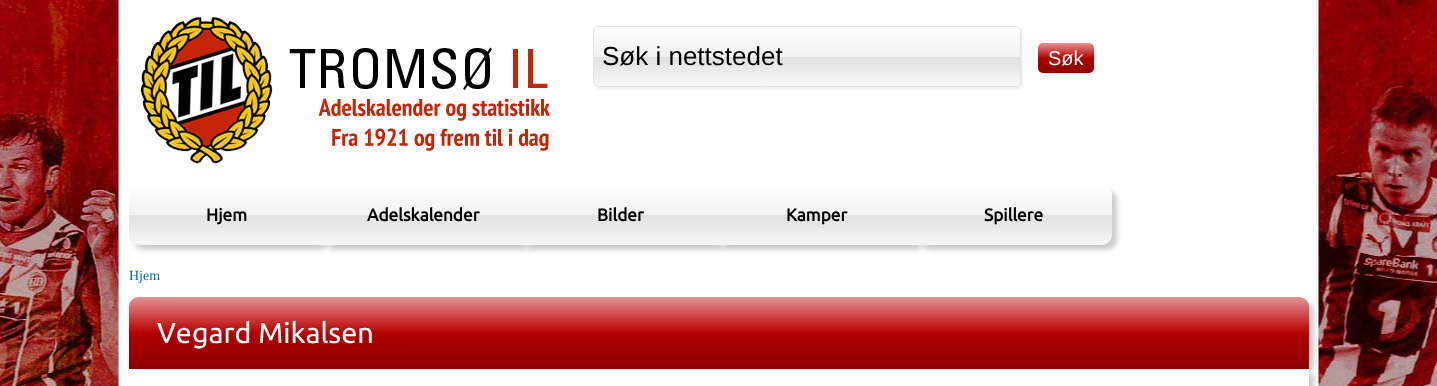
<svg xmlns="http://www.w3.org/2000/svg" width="1437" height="386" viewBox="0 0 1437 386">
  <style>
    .t1 { font: 26px Liberation Sans; fill: #000; }
    .t2 { font: 20px Liberation Sans; fill: #fff; }
    .t3 { font: bold 17.25px Ubuntu; fill: #000; }
    .t4 { font: 14px Liberation Serif; fill: #006caf; }
    .t5 { font: 28.75px Ubuntu; fill: #fff; }
  </style>
  <defs>
    <clipPath id="clip1"><rect x="593" y="26" width="428" height="61" rx="5"/></clipPath>
    <linearGradient id="g1" gradientUnits="userSpaceOnUse" x1="807" y1="27" x2="807" y2="86"><stop offset="0" stop-color="#fff"/><stop offset="0.5" stop-color="#f1f1f1"/><stop offset="0.51" stop-color="#e1e1e1"/><stop offset="1" stop-color="#f6f6f6"/></linearGradient>
    <linearGradient id="g2" gradientUnits="userSpaceOnUse" x1="1066" y1="43" x2="1066" y2="73"><stop offset="0" stop-color="#e49393"/><stop offset="0.5" stop-color="#ba0000"/><stop offset="0.51" stop-color="#af0000"/><stop offset="1" stop-color="#8e0000"/></linearGradient>
    <linearGradient id="g3" gradientUnits="userSpaceOnUse" x1="227" y1="185" x2="227" y2="245"><stop offset="0" stop-color="#fff"/><stop offset="0.5" stop-color="#f1f1f1"/><stop offset="0.51" stop-color="#e1e1e1"/><stop offset="1" stop-color="#f6f6f6"/></linearGradient>
    <linearGradient id="g4" gradientUnits="userSpaceOnUse" x1="424" y1="185" x2="424" y2="245"><stop offset="0" stop-color="#fff"/><stop offset="0.5" stop-color="#f1f1f1"/><stop offset="0.51" stop-color="#e1e1e1"/><stop offset="1" stop-color="#f6f6f6"/></linearGradient>
    <linearGradient id="g5" gradientUnits="userSpaceOnUse" x1="620" y1="185" x2="620" y2="245"><stop offset="0" stop-color="#fff"/><stop offset="0.5" stop-color="#f1f1f1"/><stop offset="0.51" stop-color="#e1e1e1"/><stop offset="1" stop-color="#f6f6f6"/></linearGradient>
    <linearGradient id="g6" gradientUnits="userSpaceOnUse" x1="817" y1="185" x2="817" y2="245"><stop offset="0" stop-color="#fff"/><stop offset="0.5" stop-color="#f1f1f1"/><stop offset="0.51" stop-color="#e1e1e1"/><stop offset="1" stop-color="#f6f6f6"/></linearGradient>
    <linearGradient id="g7" gradientUnits="userSpaceOnUse" x1="1014" y1="185" x2="1014" y2="245"><stop offset="0" stop-color="#fff"/><stop offset="0.5" stop-color="#f1f1f1"/><stop offset="0.51" stop-color="#e1e1e1"/><stop offset="1" stop-color="#f6f6f6"/></linearGradient>
    <linearGradient id="g8" gradientUnits="userSpaceOnUse" x1="719" y1="297" x2="719" y2="369"><stop offset="0" stop-color="#e49393"/><stop offset="0.5" stop-color="#ba0000"/><stop offset="0.51" stop-color="#af0000"/><stop offset="1" stop-color="#8e0000"/></linearGradient>
  </defs>
  <rect width="100%" height="100%" fill="#fff"/>
  <image x="0" y="0" width="1437" height="386" href="images/1.png"/>
  <image x="140" y="17" width="410" height="147" href="images/2.png"/>
  <rect x="595" y="28" width="428" height="61" rx="5" fill="#eee" filter="blur(1px)"/>
  <g clip-path="url(#clip1)">
    <rect x="593" y="27" width="428" height="59" fill="url(#g1)"/>
  </g>
  <rect x="593.5" y="26.5" width="427" height="60" rx="4.5" fill="none" stroke="#e5e5e5"/>
  <text x="602" y="65" class="t1">Søk i nettstedet</text>
  <rect x="1040" y="45" width="56" height="30" rx="5" fill="#eee" filter="blur(1px)"/>
  <rect x="1038" y="43" width="56" height="30" rx="5" fill="url(#g2)"/>
  <text x="1048" y="65" class="t2">Søk</text>
  <rect x="134" y="190" width="196" height="60" rx="10" fill="#ccc" filter="blur(2.5px)"/>
  <path d="M139 185H325V245H139C133.5 245 129 240.5 129 235V195C129 189.5 133.5 185 139 185Z" fill="url(#g3)"/>
  <text x="206" y="221" class="t3">Hjem</text>
  <rect x="330" y="190" width="197" height="60" fill="#ccc" filter="blur(2.5px)"/>
  <rect x="325" y="186" width="197" height="59" fill="url(#g4)"/>
  <text x="367" y="221" class="t3">Adelskalender</text>
  <rect x="527" y="190" width="196" height="60" fill="#ccc" filter="blur(2.5px)"/>
  <rect x="522" y="186" width="196" height="59" fill="url(#g5)"/>
  <text x="597" y="221" class="t3">Bilder</text>
  <rect x="723" y="190" width="197" height="60" fill="#ccc" filter="blur(2.5px)"/>
  <rect x="718" y="186" width="197" height="59" fill="url(#g6)"/>
  <text x="786" y="221" class="t3">Kamper</text>
  <rect x="920" y="190" width="197" height="60" rx="10" fill="#ccc" filter="blur(2.5px)"/>
  <path d="M915 185H1102C1107.5 185 1112 189.5 1112 195V235C1112 240.5 1107.5 245 1102 245H915Z" fill="url(#g7)"/>
  <text x="984" y="221" class="t3">Spillere</text>
  <text x="129" y="280" class="t4">Hjem</text>
  <rect x="134" y="302" width="1180" height="72" rx="10" fill="#ccc" filter="blur(2.5px)"/>
  <path d="M139 297H1299C1304.5 297 1309 301.5 1309 307V369H129V307C129 301.5 133.5 297 139 297Z" fill="url(#g8)"/>
  <text x="157" y="343" class="t5">Vegard Mikalsen</text>
  <rect x="134" y="374" width="1180" height="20" fill="#ccc" filter="blur(2.5px)"/>
  <rect x="129" y="369" width="1180" height="17" fill="#fff"/>
</svg>
